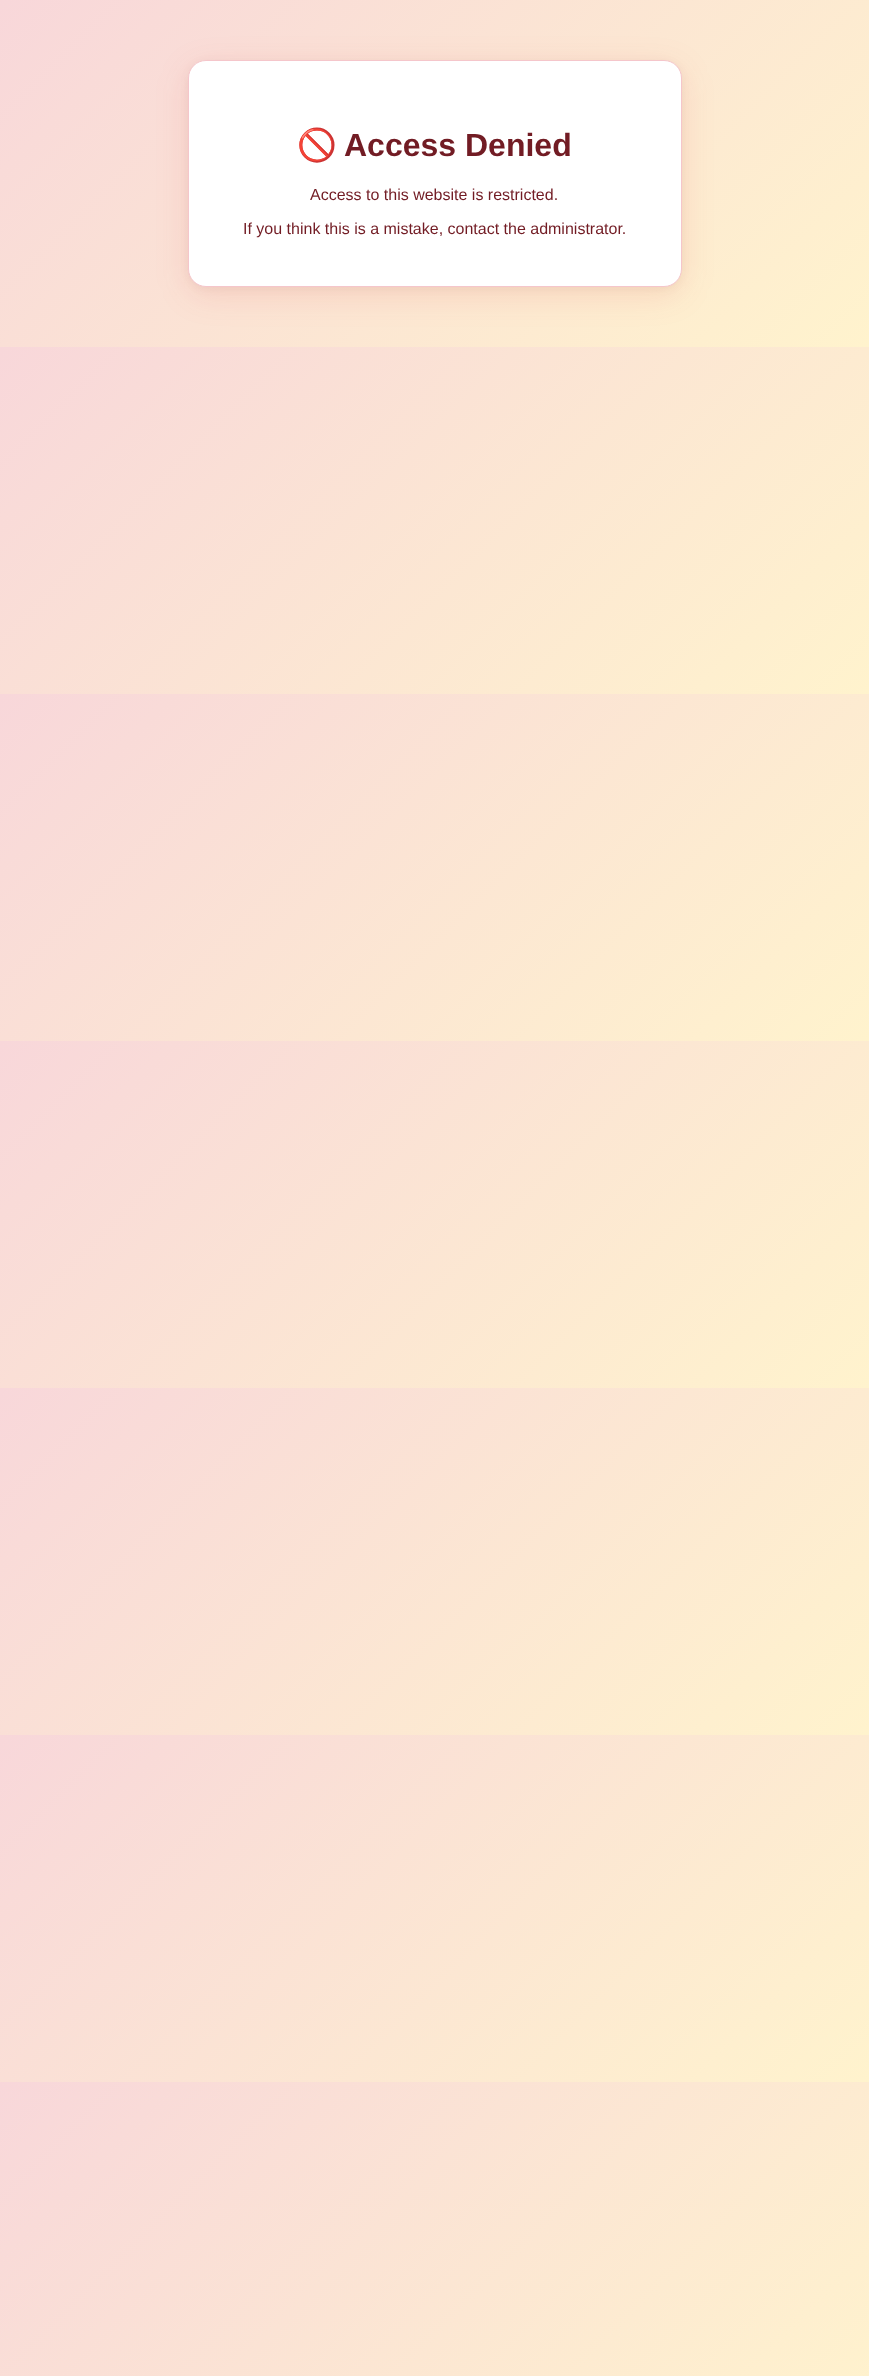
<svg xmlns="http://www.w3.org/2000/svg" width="869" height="2376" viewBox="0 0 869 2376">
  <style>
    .t1 { font: bold 32px Noto Color Emoji; fill: #721c24; }
    .t2 { font: bold 32px Liberation Sans; fill: #721c24; }
    .t3 { font: 16px Liberation Sans; fill: #721c24; }
  </style>
  <defs>
    <linearGradient id="g1" gradientUnits="userSpaceOnUse" x1="130" y1="-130" x2="739" y2="478"><stop offset="0" stop-color="#f8d7da"/><stop offset="1" stop-color="#fff3cd"/></linearGradient>
    <linearGradient id="g2" gradientUnits="userSpaceOnUse" x1="130" y1="217" x2="739" y2="825"><stop offset="0" stop-color="#f8d7da"/><stop offset="1" stop-color="#fff3cd"/></linearGradient>
    <linearGradient id="g3" gradientUnits="userSpaceOnUse" x1="130" y1="564" x2="739" y2="1172"><stop offset="0" stop-color="#f8d7da"/><stop offset="1" stop-color="#fff3cd"/></linearGradient>
    <linearGradient id="g4" gradientUnits="userSpaceOnUse" x1="130" y1="911" x2="739" y2="1519"><stop offset="0" stop-color="#f8d7da"/><stop offset="1" stop-color="#fff3cd"/></linearGradient>
    <linearGradient id="g5" gradientUnits="userSpaceOnUse" x1="130" y1="1258" x2="739" y2="1866"><stop offset="0" stop-color="#f8d7da"/><stop offset="1" stop-color="#fff3cd"/></linearGradient>
    <linearGradient id="g6" gradientUnits="userSpaceOnUse" x1="130" y1="1605" x2="739" y2="2213"><stop offset="0" stop-color="#f8d7da"/><stop offset="1" stop-color="#fff3cd"/></linearGradient>
    <linearGradient id="g7" gradientUnits="userSpaceOnUse" x1="130" y1="1952" x2="739" y2="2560"><stop offset="0" stop-color="#f8d7da"/><stop offset="1" stop-color="#fff3cd"/></linearGradient>
  </defs>
  <rect width="100%" height="100%" fill="#fff"/>
  <rect x="0" y="0" width="869" height="347" fill="url(#g1)"/>
  <rect x="0" y="347" width="869" height="347" fill="url(#g2)"/>
  <rect x="0" y="694" width="869" height="347" fill="url(#g3)"/>
  <rect x="0" y="1041" width="869" height="347" fill="url(#g4)"/>
  <rect x="0" y="1388" width="869" height="347" fill="url(#g5)"/>
  <rect x="0" y="1735" width="869" height="347" fill="url(#g6)"/>
  <rect x="0" y="2082" width="869" height="294" fill="url(#g7)"/>
  <rect x="188" y="62" width="494" height="227" rx="18" fill="#0000000a" filter="blur(4px)"/>
  <rect x="188" y="68" width="494" height="227" rx="18" fill="#d633331f" filter="blur(16px)"/>
  <rect x="188.5" y="60.5" width="493" height="226" rx="17.5" fill="#fff" stroke="#f5c6cb"/>
  <text x="297" y="156" class="t1">🚫</text>
  <text x="344" y="156" class="t2">Access Denied</text>
  <text x="310" y="200" class="t3">Access to this website is restricted.</text>
  <text x="243" y="234" class="t3">If you think this is a mistake, contact the administrator.</text>
</svg>
